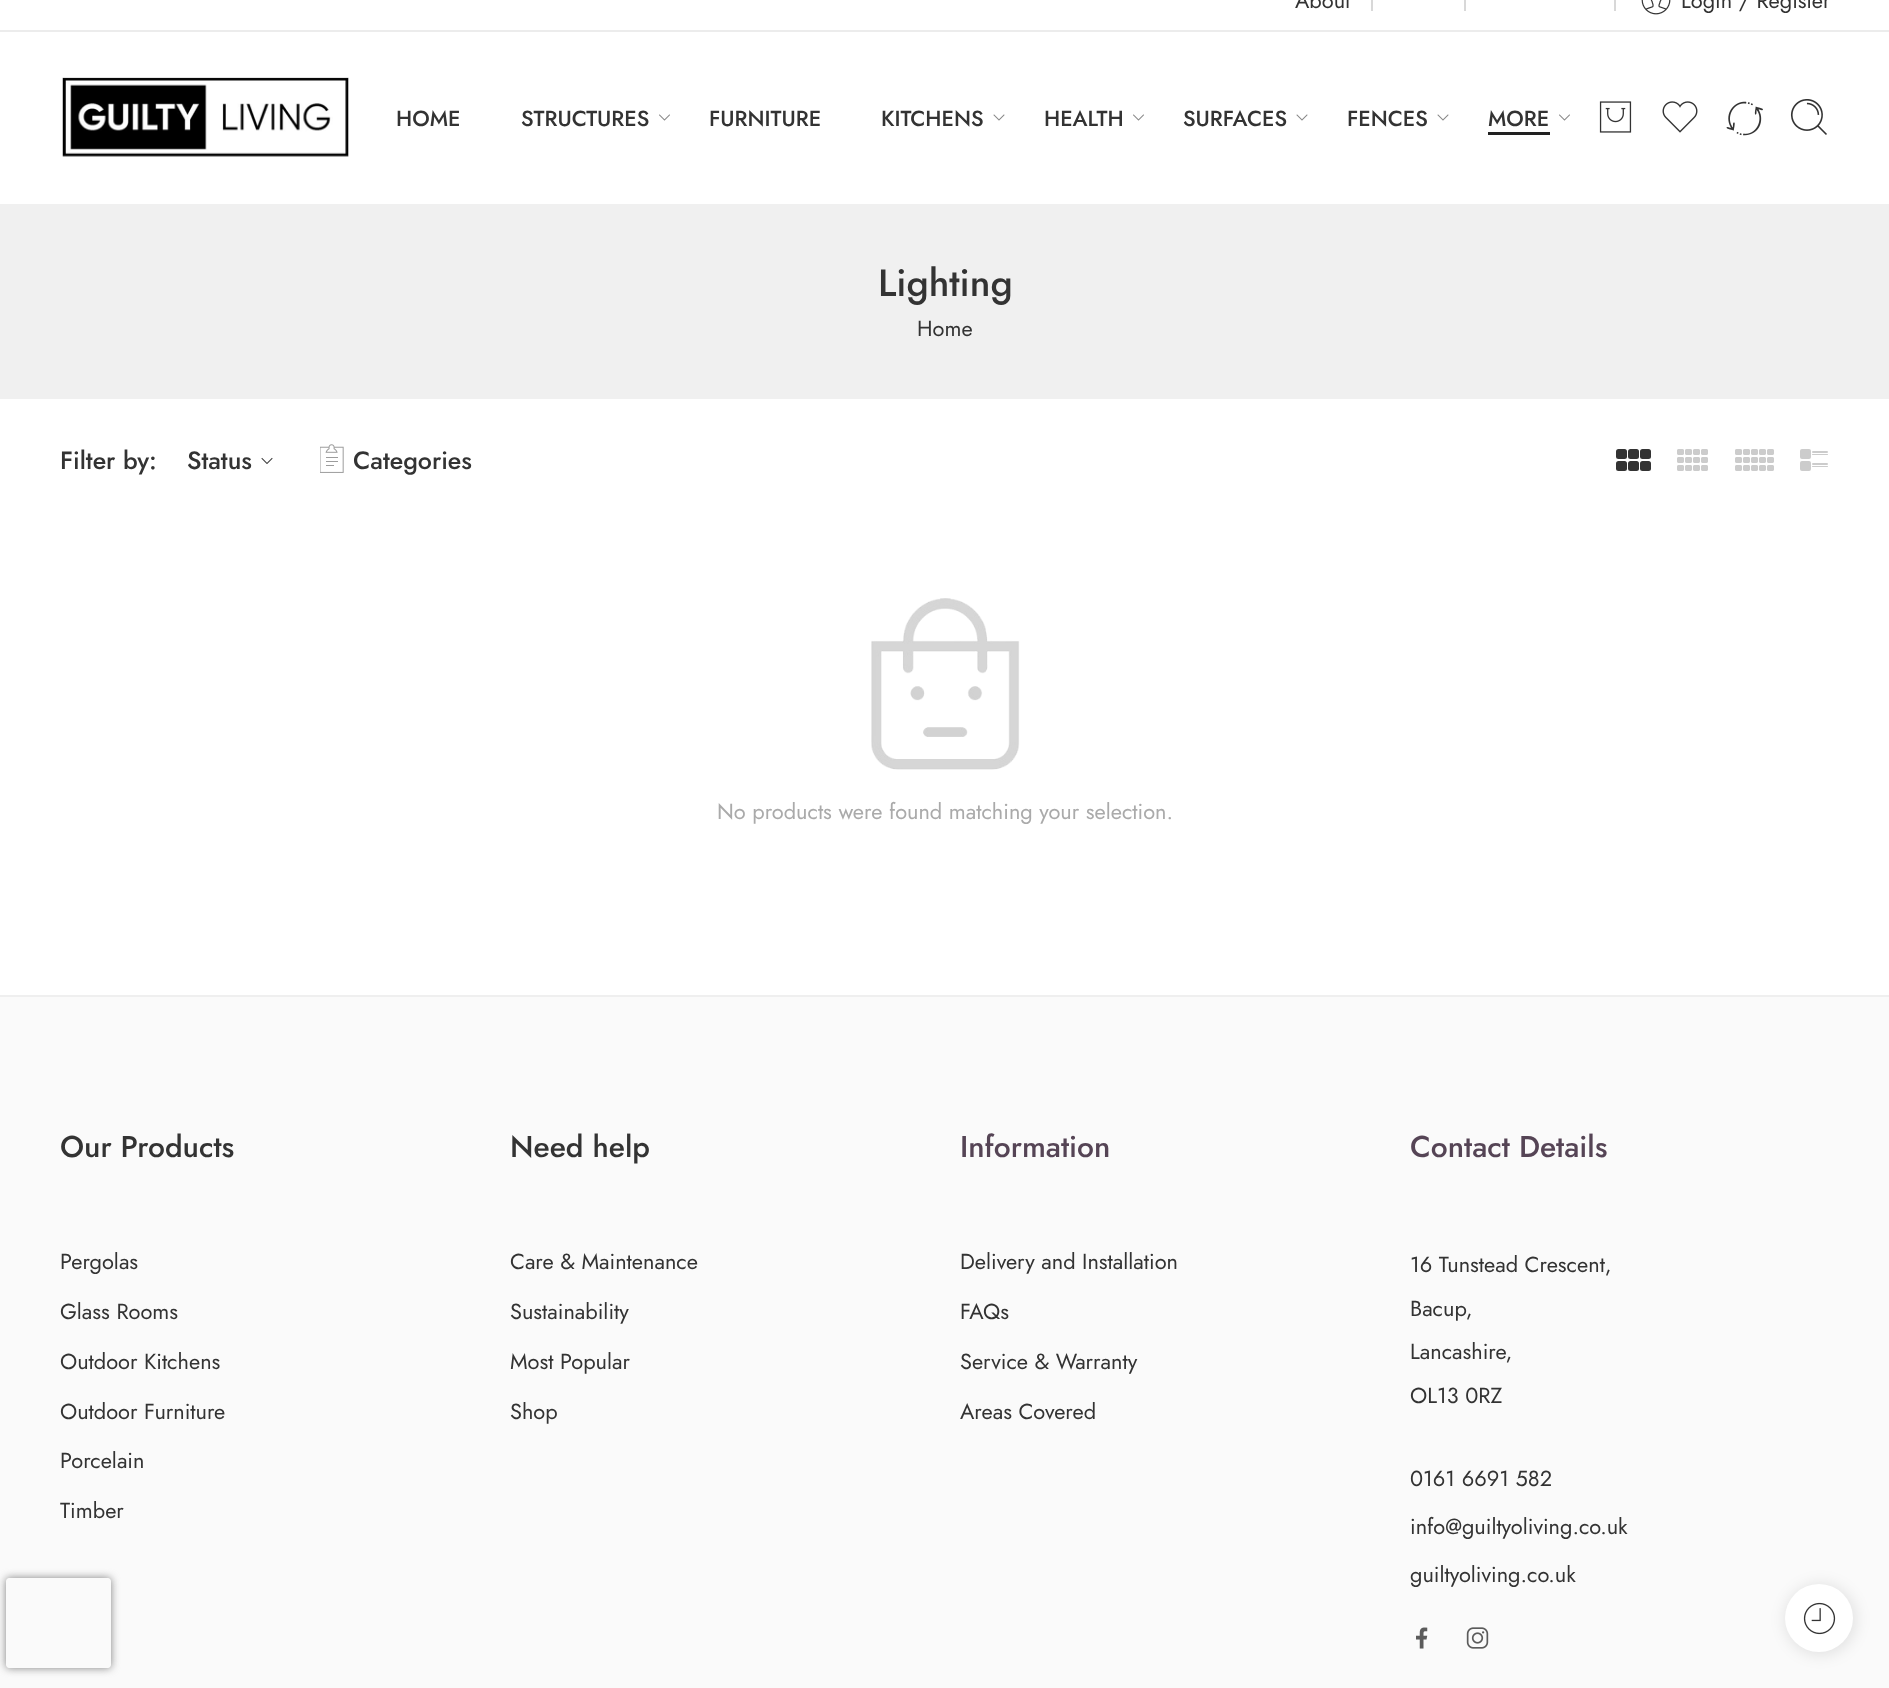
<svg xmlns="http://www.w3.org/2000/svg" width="1889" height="1688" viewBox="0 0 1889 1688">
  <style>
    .t1 { font: 21.75px Jost; fill: #333; }
    .t2 { font: 500 21.75px Jost; fill: #333; }
    .t3 { font: 500 38px Jost; fill: #333; }
    .t4 { font: 500 25px Jost; fill: #333; }
    .t5 { font: 21.75px Jost; fill: #aaa; }
    .t6 { font: 500 30px Jost; fill: #333; }
    .t7 { font: 500 30px Jost; fill: #545; }
  </style>
  <defs>
    <clipPath id="clip1"><path d="M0 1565H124V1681H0ZM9 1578H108C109.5 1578 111 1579.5 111 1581V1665C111 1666.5 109.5 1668 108 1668H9C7.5 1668 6 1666.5 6 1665V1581C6 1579.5 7.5 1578 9 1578Z" clip-rule="evenodd"/></clipPath>
  </defs>
  <rect width="100%" height="100%" fill="#fff"/>
  <rect x="0" y="30" width="1889" height="2" fill="#ececec"/>
  <text x="1295" y="8" class="t1">About</text>
  <rect x="1371" y="0" width="2" height="11" fill="#d8d8d8"/>
  <rect x="1464" y="0" width="2" height="11" fill="#d8d8d8"/>
  <rect x="1614" y="0" width="2" height="11" fill="#d8d8d8"/>
  <image x="1641" y="0" width="30" height="15" href="images/1.png"/>
  <text x="1681" y="8" class="t1">Login / Register</text>
  <image x="62" y="77" width="287" height="80" href="images/2.png"/>
  <text x="396" y="126" class="t2">HOME</text>
  <text x="521" y="126" class="t2">STRUCTURES</text>
  <image x="659" y="114" width="11" height="7" href="images/3.png"/>
  <text x="709" y="126" class="t2">FURNITURE</text>
  <text x="881" y="126" class="t2">KITCHENS</text>
  <image x="993" y="114" width="12" height="7" href="images/4.png"/>
  <text x="1044" y="126" class="t2">HEALTH</text>
  <image x="1133" y="114" width="11" height="7" href="images/3.png"/>
  <text x="1183" y="126" class="t2">SURFACES</text>
  <image x="1296" y="114" width="12" height="7" href="images/4.png"/>
  <text x="1347" y="126" class="t2">FENCES</text>
  <image x="1437" y="114" width="12" height="7" href="images/4.png"/>
  <text x="1488" y="126" class="t2">MORE</text>
  <image x="1559" y="114" width="11" height="7" href="images/3.png"/>
  <rect x="1488" y="132" width="62" height="3" fill="#212121"/>
  <image x="1599" y="101" width="33" height="32" href="images/5.png"/>
  <image x="1662" y="101" width="36" height="32" href="images/6.png"/>
  <image x="1726" y="101" width="37" height="35" href="images/7.png"/>
  <image x="1790" y="99" width="37" height="36" href="images/8.png"/>
  <rect x="0" y="204" width="1889" height="195" fill="#f0f0f0"/>
  <text x="878" y="296" class="t3">Lighting</text>
  <text x="917" y="336" class="t1">Home</text>
  <text x="60" y="469" class="t4">Filter by:</text>
  <text x="187" y="469" class="t4">Status</text>
  <image x="261" y="457" width="12" height="7" href="images/9.png"/>
  <image x="320" y="444" width="24" height="29" href="images/10.png"/>
  <text x="353" y="469" class="t4">Categories</text>
  <rect x="1616" y="449" width="11" height="10" rx="2.5" fill="#333"/>
  <rect x="1616" y="461" width="11" height="10" rx="2.5" fill="#333"/>
  <rect x="1628" y="449" width="11" height="10" rx="2.5" fill="#333"/>
  <rect x="1640" y="449" width="11" height="10" rx="2.5" fill="#333"/>
  <rect x="1628" y="461" width="11" height="10" rx="2.5" fill="#333"/>
  <rect x="1640" y="461" width="11" height="10" rx="2.5" fill="#333"/>
  <image x="1677" y="449" width="31" height="22" href="images/11.png"/>
  <image x="1735" y="449" width="39" height="22" href="images/12.png"/>
  <rect x="1812" y="451" width="16" height="2" rx="1" fill="#ccc"/>
  <rect x="1812" y="454" width="16" height="1" rx="0.5" fill="#ccc"/>
  <rect x="1800" y="449" width="11" height="10" rx="2" fill="#ccc"/>
  <rect x="1812" y="463" width="16" height="2" rx="1" fill="#ccc"/>
  <rect x="1812" y="466" width="16" height="1" rx="0.5" fill="#ccc"/>
  <rect x="1800" y="461" width="11" height="10" rx="2" fill="#ccc"/>
  <image x="871" y="598" width="149" height="172" href="images/13.png"/>
  <text x="717" y="819" class="t5">No products were found matching your selection.</text>
  <rect x="0" y="997" width="1889" height="691" fill="#fafafa"/>
  <rect x="0" y="995" width="1889" height="2" fill="#efefef"/>
  <text x="60" y="1157" class="t6">Our Products</text>
  <text x="60" y="1269" class="t1">Pergolas</text>
  <text x="60" y="1319" class="t1">Glass Rooms</text>
  <text x="60" y="1369" class="t1">Outdoor Kitchens</text>
  <text x="60" y="1419" class="t1">Outdoor Furniture</text>
  <text x="60" y="1468" class="t1">Porcelain</text>
  <text x="60" y="1518" class="t1">Timber</text>
  <text x="510" y="1157" class="t6">Need help</text>
  <text x="510" y="1269" class="t1">Care &amp; Maintenance</text>
  <text x="510" y="1319" class="t1">Sustainability</text>
  <text x="510" y="1369" class="t1">Most Popular</text>
  <text x="510" y="1419" class="t1">Shop</text>
  <text x="960" y="1157" class="t7">Information</text>
  <text x="960" y="1269" class="t1">Delivery and Installation</text>
  <text x="960" y="1319" class="t1">FAQs</text>
  <text x="960" y="1369" class="t1">Service &amp; Warranty</text>
  <text x="960" y="1419" class="t1">Areas Covered</text>
  <text x="1410" y="1157" class="t7">Contact Details</text>
  <text x="1410" y="1272" class="t1">16 Tunstead Crescent,</text>
  <text x="1410" y="1316" class="t1">Bacup,</text>
  <text x="1410" y="1359" class="t1">Lancashire,</text>
  <text x="1410" y="1403" class="t1">OL13 0RZ</text>
  <text x="1410" y="1486" class="t1">0161 6691 582</text>
  <text x="1410" y="1534" class="t1">info@guiltyoliving.co.uk</text>
  <text x="1410" y="1582" class="t1">guiltyoliving.co.uk</text>
  <image x="1416" y="1627" width="12" height="22" href="images/14.png"/>
  <image x="1466" y="1627" width="23" height="22" href="images/15.png"/>
  <g clip-path="url(#clip1)">
    <rect x="6" y="1578" width="105" height="90" rx="3" fill="#808080" filter="blur(4px)"/>
  </g>
  <rect x="1785" y="1584" width="71" height="71" rx="35.5" fill="#0000001a" filter="blur(7.5px)"/>
  <circle cx="1819" cy="1618" r="34" fill="#fff"/>
  <image x="1803" y="1602" width="33" height="33" href="images/16.png"/>
</svg>
